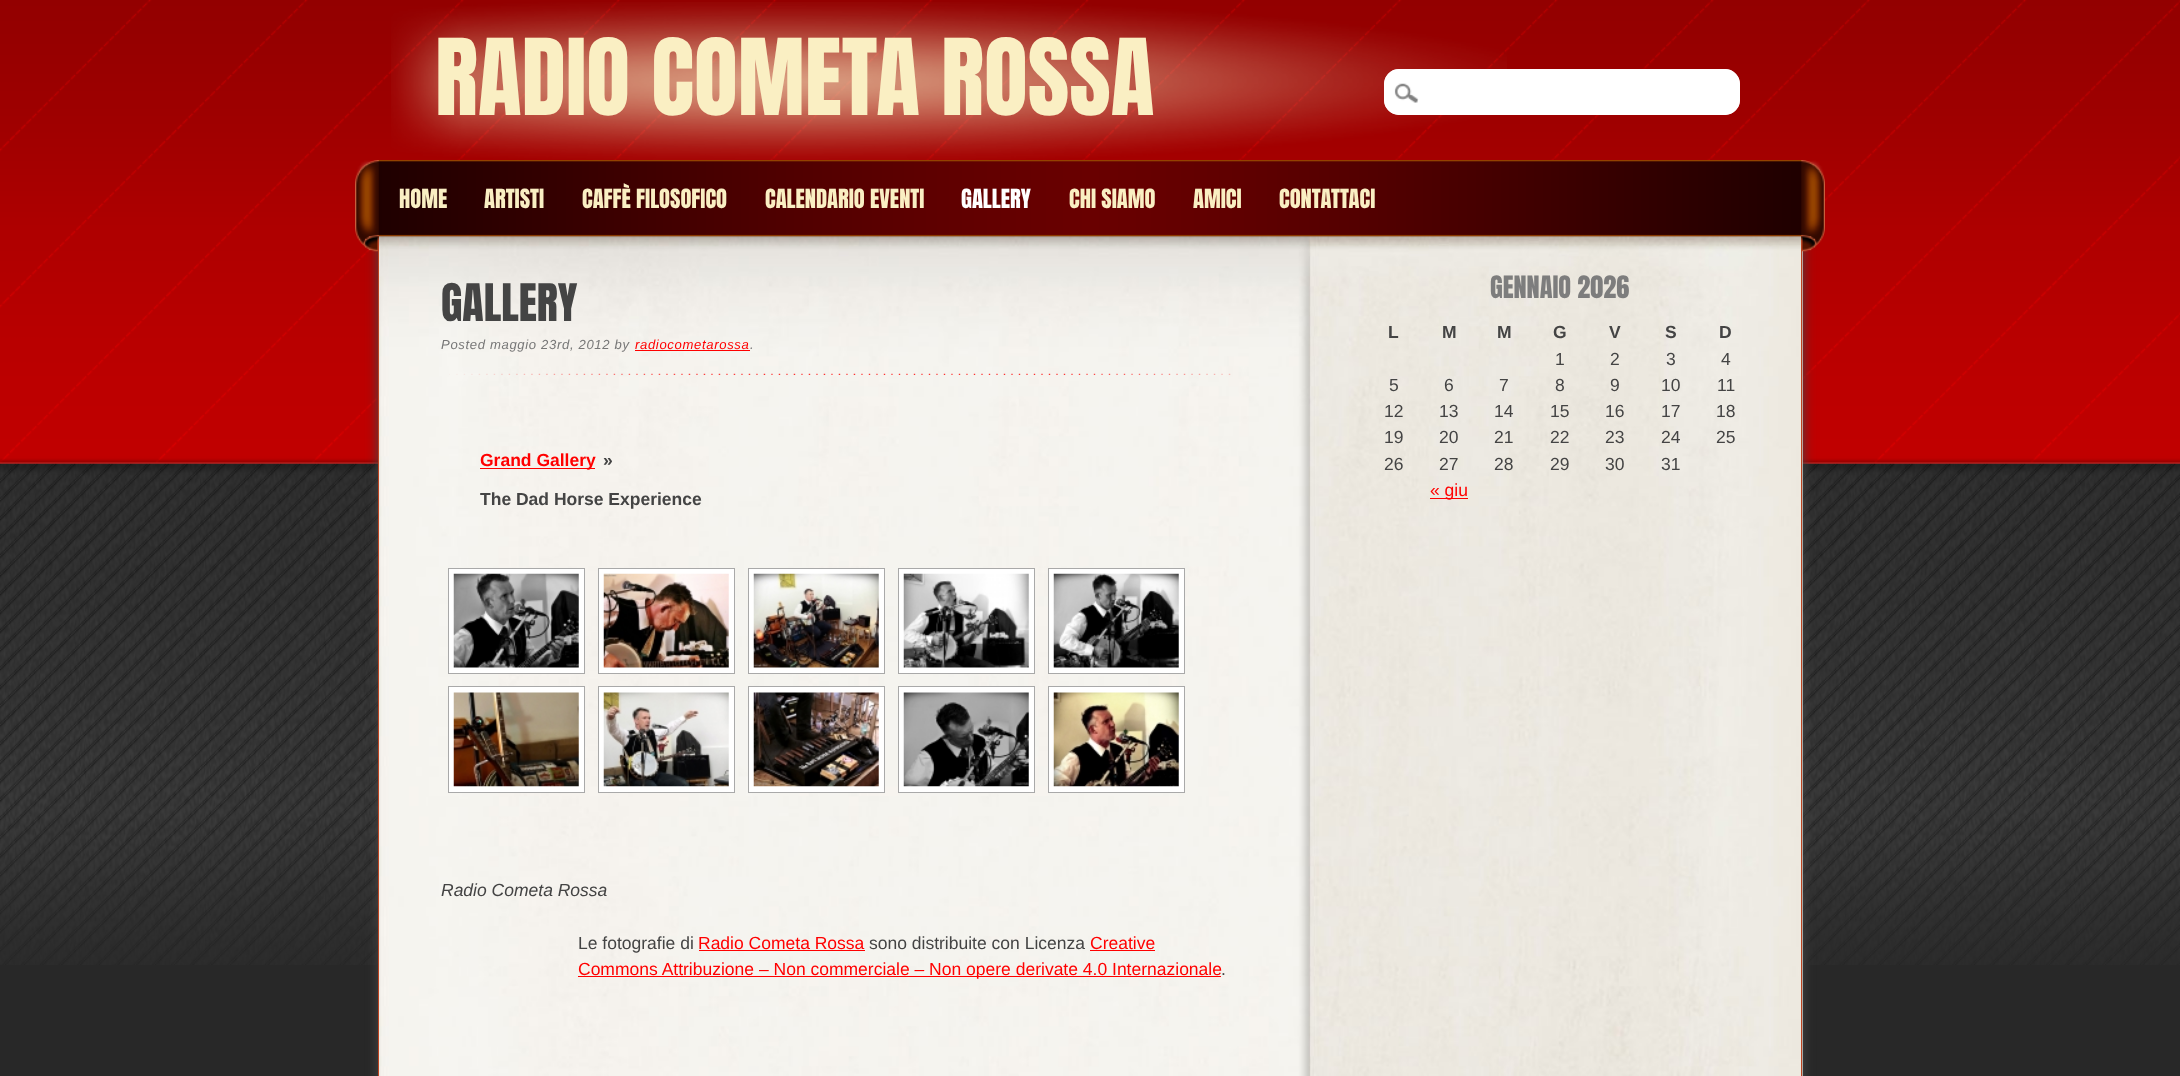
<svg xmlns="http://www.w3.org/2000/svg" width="2180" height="1076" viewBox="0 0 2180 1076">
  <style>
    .t1 { font: 90px Anton; fill: #faefc3; }
    .t2 { font: 22.5px Anton; fill: #faefc3; }
    .t3 { font: 22.5px Anton; fill: #fff; }
    .t4 { font: 44px Anton; fill: #444; }
    .t5 { font: italic 13.1px Liberation Sans; letter-spacing: 0.65px; fill: #777; }
    .t6 { font: italic 13.1px Liberation Sans; letter-spacing: 0.65px; fill: #f00; }
    .t7 { font: bold 17.5px Liberation Sans; fill: #f00; }
    .t8 { font: bold 17.5px Liberation Sans; fill: #444; }
    .t9 { font: italic 17.5px Liberation Sans; fill: #444; }
    .t10 { font: 17.5px Liberation Sans; fill: #444; }
    .t11 { font: 17.5px Liberation Sans; fill: #f00; }
    .t12 { font: 26.25px Anton; fill: #7d7d7d; }
  </style>
  <rect width="100%" height="100%" fill="#282828"/>
  <image x="0" y="0" width="2180" height="965" href="images/1.png"/>
  <image x="391" y="2" width="1116" height="158" href="images/2.png"/>
  <text x="435" y="115" class="t1">RADIO COMETA ROSSA</text>
  <rect x="1384" y="69" width="356" height="46" rx="15" fill="#fff"/>
  <image x="1394" y="83" width="25" height="20" href="images/3.png"/>
  <rect x="1384.5" y="69.5" width="355" height="45" rx="14.5" fill="none" stroke="#fff"/>
  <image x="379" y="236" width="1424" height="840" href="images/5.png"/>
  <rect x="378" y="240" width="1425" height="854" fill="#444" filter="blur(6px)"/>
  <image x="379" y="236" width="1424" height="840" href="images/6.png"/>
  <rect x="1801" y="236" width="1" height="840" fill="#bc4320"/>
  <rect x="378" y="236" width="1" height="840" fill="#bc4320"/>
  <image x="355" y="160" width="1470" height="92" href="images/4.png"/>
  <text x="399" y="208" class="t2">HOME</text>
  <text x="484" y="208" class="t2">ARTISTI</text>
  <text x="582" y="208" class="t2">CAFFÈ FILOSOFICO</text>
  <text x="765" y="208" class="t2">CALENDARIO EVENTI</text>
  <text x="961" y="208" class="t3">GALLERY</text>
  <text x="1069" y="208" class="t2">CHI SIAMO</text>
  <text x="1193" y="208" class="t2">AMICI</text>
  <text x="1279" y="208" class="t2">CONTATTACI</text>
  <text x="441" y="321" class="t4">GALLERY</text>
  <image x="449" y="373" width="782" height="2" href="images/7.png"/>
  <text x="441" y="349" class="t5">Posted maggio 23rd, 2012 by</text>
  <text x="635" y="349" class="t6">radiocometarossa</text>
  <rect x="635" y="350" width="115" height="1" fill="#f00"/>
  <text x="750" y="349" class="t5">.</text>
  <rect x="480" y="468" width="115" height="1" fill="#f00"/>
  <text x="480" y="466" class="t7">Grand Gallery</text>
  <text x="603" y="466" class="t8">»</text>
  <text x="480" y="505" class="t8">The Dad Horse Experience</text>
  <rect x="448.5" y="568.5" width="136" height="105" fill="#fff" stroke="#a9a9a9"/>
  <image x="453" y="573" width="126" height="95" href="images/8.png"/>
  <rect x="598.5" y="568.5" width="136" height="105" fill="#fff" stroke="#a9a9a9"/>
  <image x="603" y="573" width="126" height="95" href="images/9.png"/>
  <rect x="748.5" y="568.5" width="136" height="105" fill="#fff" stroke="#a9a9a9"/>
  <image x="753" y="573" width="126" height="95" href="images/10.png"/>
  <rect x="898.5" y="568.5" width="136" height="105" fill="#fff" stroke="#a9a9a9"/>
  <image x="903" y="573" width="126" height="95" href="images/11.png"/>
  <rect x="1048.5" y="568.5" width="136" height="105" fill="#fff" stroke="#a9a9a9"/>
  <image x="1053" y="573" width="126" height="95" href="images/12.png"/>
  <rect x="448.5" y="686.5" width="136" height="106" fill="#fff" stroke="#a9a9a9"/>
  <image x="453" y="692" width="126" height="95" href="images/13.png"/>
  <rect x="598.5" y="686.5" width="136" height="106" fill="#fff" stroke="#a9a9a9"/>
  <image x="603" y="692" width="126" height="95" href="images/14.png"/>
  <rect x="748.5" y="686.5" width="136" height="106" fill="#fff" stroke="#a9a9a9"/>
  <image x="753" y="692" width="126" height="95" href="images/15.png"/>
  <rect x="898.5" y="686.5" width="136" height="106" fill="#fff" stroke="#a9a9a9"/>
  <image x="903" y="692" width="126" height="95" href="images/16.png"/>
  <rect x="1048.5" y="686.5" width="136" height="106" fill="#fff" stroke="#a9a9a9"/>
  <image x="1053" y="692" width="126" height="95" href="images/17.png"/>
  <text x="441" y="896" class="t9">Radio Cometa Rossa</text>
  <text x="578" y="949" class="t10">Le fotografie di</text>
  <text x="698" y="949" class="t11">Radio Cometa Rossa</text>
  <rect x="699" y="950" width="166" height="1" fill="#f00"/>
  <text x="869" y="949" class="t10">sono distribuite con Licenza</text>
  <text x="1090" y="949" class="t11">Creative</text>
  <rect x="1090" y="950" width="65" height="1" fill="#f00"/>
  <rect x="578" y="976" width="643" height="1" fill="#f00"/>
  <text x="578" y="975" class="t11">Commons Attribuzione – Non commerciale – Non opere derivate 4.0 Internazionale</text>
  <text x="1221" y="975" class="t10">.</text>
  <text x="1490" y="298" class="t12">GENNAIO 2026</text>
  <text x="1388" y="338" class="t8">L</text>
  <text x="1442" y="338" class="t8">M</text>
  <text x="1497" y="338" class="t8">M</text>
  <text x="1553" y="338" class="t8">G</text>
  <text x="1609" y="338" class="t8">V</text>
  <text x="1665" y="338" class="t8">S</text>
  <text x="1719" y="338" class="t8">D</text>
  <text x="1555" y="365" class="t10">1</text>
  <text x="1610" y="365" class="t10">2</text>
  <text x="1666" y="365" class="t10">3</text>
  <text x="1721" y="365" class="t10">4</text>
  <text x="1389" y="391" class="t10">5</text>
  <text x="1444" y="391" class="t10">6</text>
  <text x="1499" y="391" class="t10">7</text>
  <text x="1555" y="391" class="t10">8</text>
  <text x="1610" y="391" class="t10">9</text>
  <text x="1661" y="391" class="t10">10</text>
  <text x="1717" y="391" class="t10">11</text>
  <text x="1384" y="417" class="t10">12</text>
  <text x="1439" y="417" class="t10">13</text>
  <text x="1494" y="417" class="t10">14</text>
  <text x="1550" y="417" class="t10">15</text>
  <text x="1605" y="417" class="t10">16</text>
  <text x="1661" y="417" class="t10">17</text>
  <text x="1716" y="417" class="t10">18</text>
  <text x="1384" y="443" class="t10">19</text>
  <text x="1439" y="443" class="t10">20</text>
  <text x="1494" y="443" class="t10">21</text>
  <text x="1550" y="443" class="t10">22</text>
  <text x="1605" y="443" class="t10">23</text>
  <text x="1661" y="443" class="t10">24</text>
  <text x="1716" y="443" class="t10">25</text>
  <text x="1384" y="470" class="t10">26</text>
  <text x="1439" y="470" class="t10">27</text>
  <text x="1494" y="470" class="t10">28</text>
  <text x="1550" y="470" class="t10">29</text>
  <text x="1605" y="470" class="t10">30</text>
  <text x="1661" y="470" class="t10">31</text>
  <rect x="1430" y="498" width="38" height="1" fill="#f00"/>
  <text x="1430" y="496" class="t11">« giu</text>
</svg>
